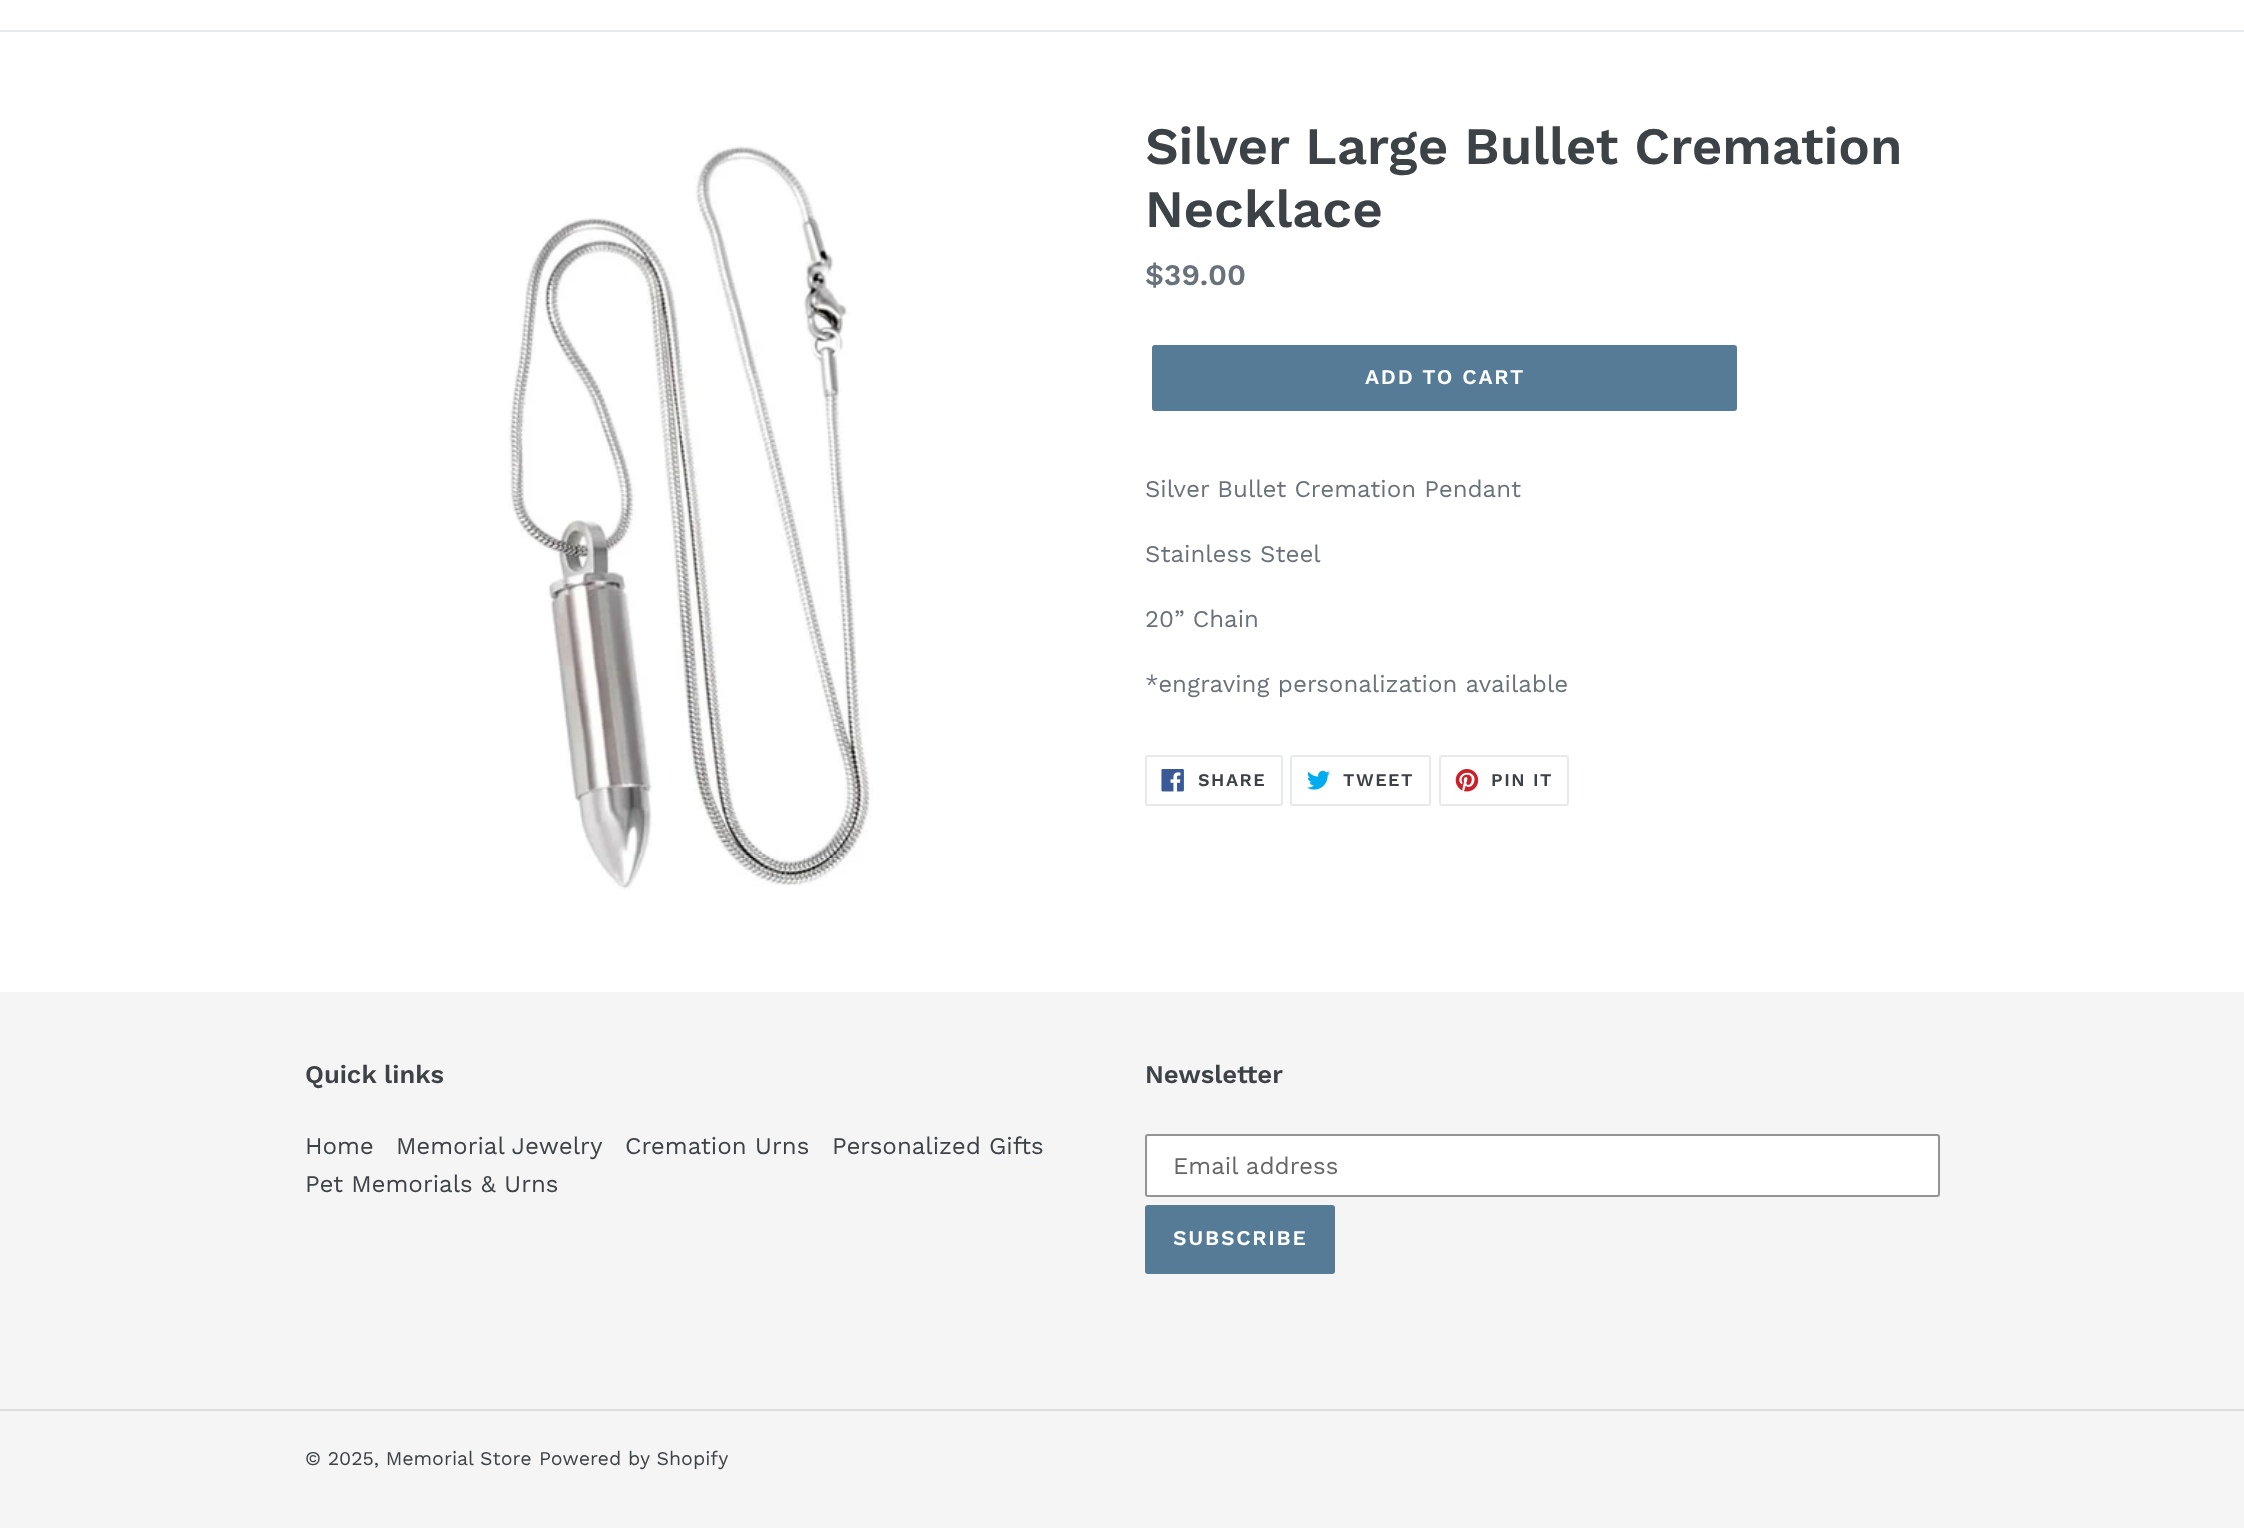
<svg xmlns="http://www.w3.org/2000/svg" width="2244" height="1528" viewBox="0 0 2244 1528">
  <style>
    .t1 { font: 600 52.5px Work Sans; fill: #3d4246; }
    .t2 { font: 600 30px Work Sans; fill: #69727b; }
    .t3 { font: 600 21px Work Sans; letter-spacing: 1.75px; fill: #fff; }
    .t4 { font: 24px Work Sans; fill: #69727b; }
    .t5 { font: 600 18px Work Sans; letter-spacing: 1.5px; fill: #3d4246; }
    .t6 { font: 600 25.5px Work Sans; fill: #3d4246; }
    .t7 { font: 24px Work Sans; fill: #3d4246; }
    .t8 { font: 24px Work Sans; fill: #666; }
    .t9 { font: 19.5px Work Sans; fill: #3d4246; }
  </style>
  <rect width="100%" height="100%" fill="#fff"/>
  <rect x="0" y="30" width="2244" height="2" fill="#e8e9eb"/>
  <image x="508" y="145" width="365" height="746" href="images/1.png"/>
  <text x="1145" y="164" class="t1">Silver Large Bullet Cremation</text>
  <text x="1145" y="227" class="t1">Necklace</text>
  <text x="1145" y="285" class="t2">$39.00</text>
  <rect x="1152" y="345" width="585" height="66" rx="3" fill="#557b97"/>
  <text x="1365" y="384" class="t3">ADD TO CART</text>
  <text x="1145" y="497" class="t4">Silver Bullet Cremation Pendant</text>
  <text x="1145" y="562" class="t4">Stainless Steel</text>
  <text x="1145" y="627" class="t4">20” Chain</text>
  <text x="1145" y="692" class="t4">*engraving personalization available</text>
  <rect x="1146" y="756" width="136" height="49" rx="2" fill="none" stroke="#e8e9eb" stroke-width="2"/>
  <image x="1161" y="769" width="23" height="23" href="images/2.png"/>
  <text x="1198" y="786" class="t5">SHARE</text>
  <rect x="1291" y="756" width="139" height="49" rx="2" fill="none" stroke="#e8e9eb" stroke-width="2"/>
  <image x="1307" y="770" width="23" height="20" href="images/3.png"/>
  <text x="1343" y="786" class="t5">TWEET</text>
  <rect x="1440" y="756" width="128" height="49" rx="2" fill="none" stroke="#e8e9eb" stroke-width="2"/>
  <image x="1455" y="769" width="24" height="23" href="images/4.png"/>
  <text x="1491" y="786" class="t5">PIN IT</text>
  <rect x="0" y="992" width="2244" height="536" fill="#f5f5f5"/>
  <text x="305" y="1083" class="t6">Quick links</text>
  <text x="305" y="1154" class="t7">Home</text>
  <text x="396" y="1154" class="t7">Memorial Jewelry</text>
  <text x="625" y="1154" class="t7">Cremation Urns</text>
  <text x="832" y="1154" class="t7">Personalized Gifts</text>
  <text x="305" y="1192" class="t7">Pet Memorials &amp; Urns</text>
  <text x="1145" y="1083" class="t6">Newsletter</text>
  <rect x="1146" y="1135" width="793" height="61" rx="2" fill="#fff" stroke="#949494" stroke-width="2"/>
  <text x="1173" y="1174" class="t8">Email address</text>
  <rect x="1145" y="1205" width="190" height="69" rx="3" fill="#557b97"/>
  <text x="1173" y="1245" class="t3">SUBSCRIBE</text>
  <rect x="0" y="1409" width="2244" height="2" fill="#dcdcdc"/>
  <text x="305" y="1465" class="t9">© 2025, Memorial Store</text>
  <text x="539" y="1465" class="t9">Powered by Shopify</text>
</svg>
